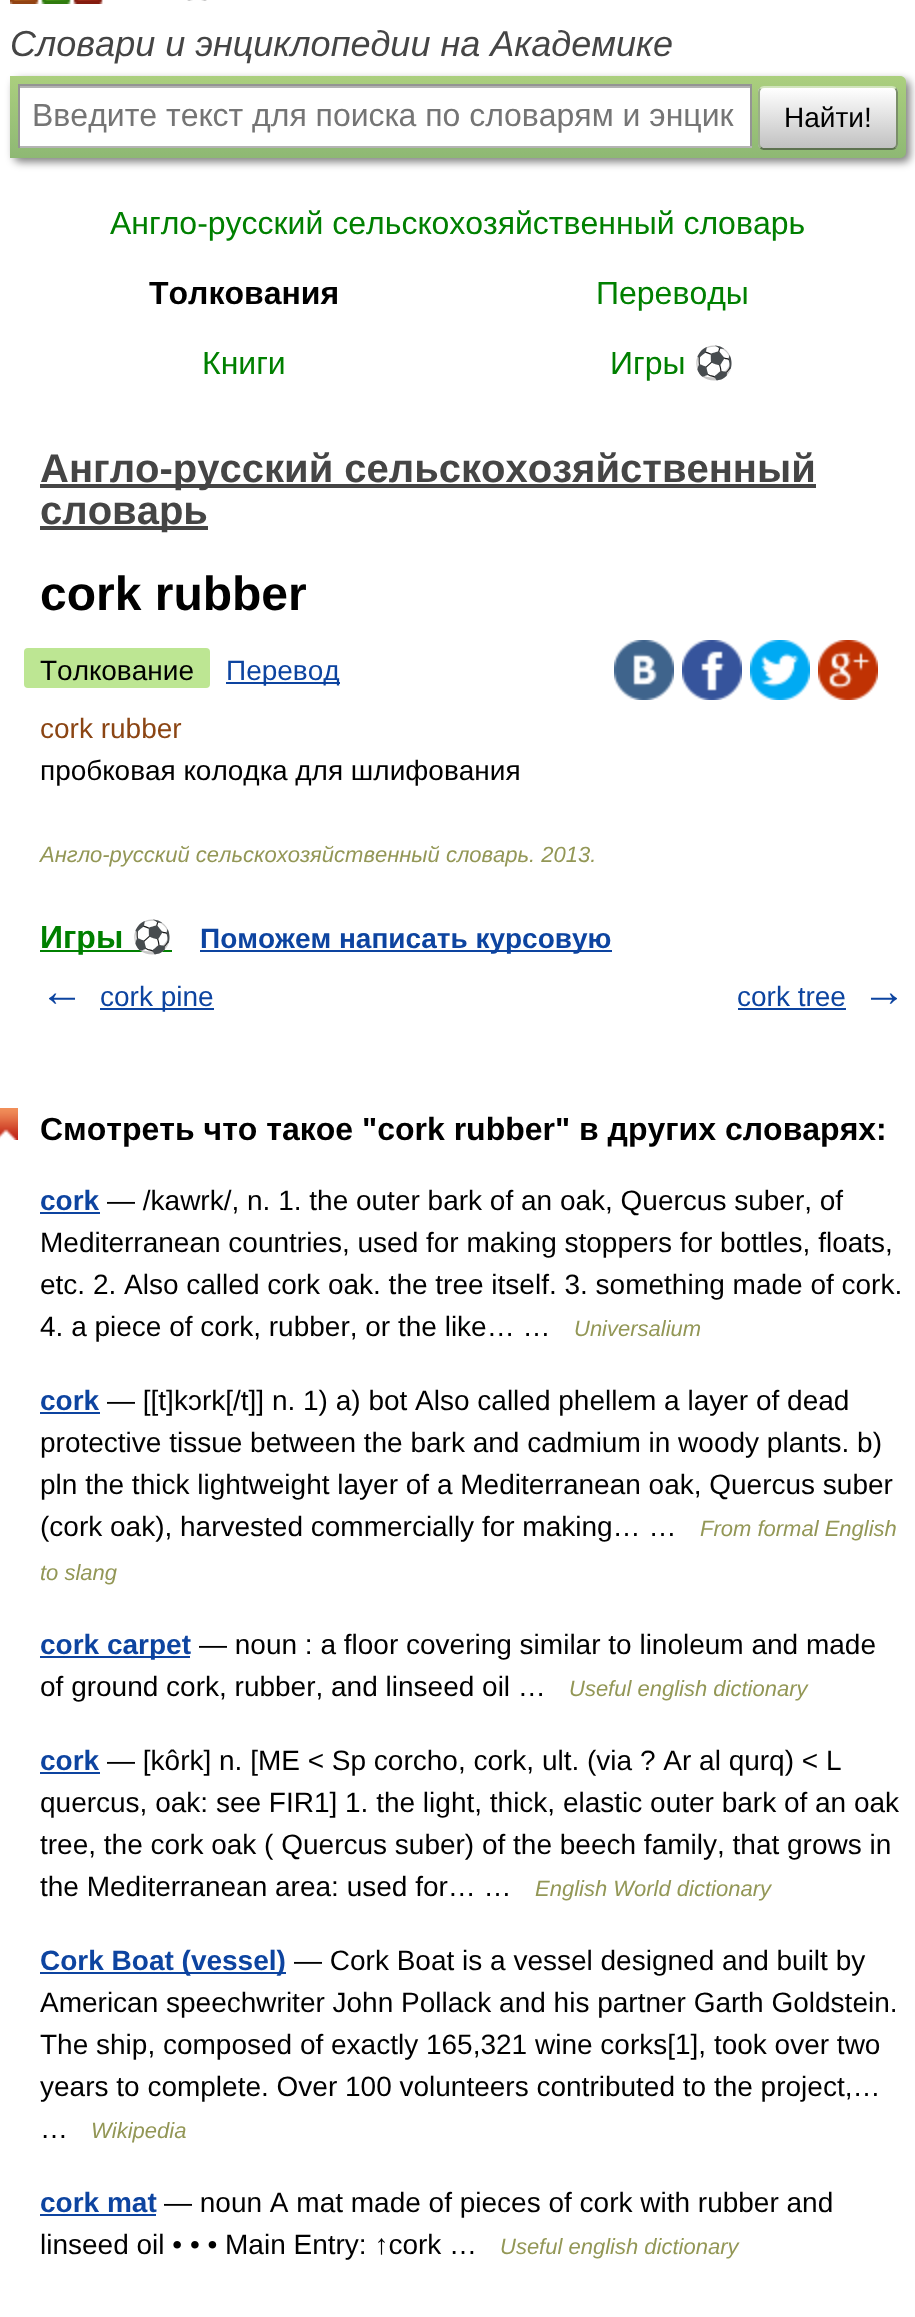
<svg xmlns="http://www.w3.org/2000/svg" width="915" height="2317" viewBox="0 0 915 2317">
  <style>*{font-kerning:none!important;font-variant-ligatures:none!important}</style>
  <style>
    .t1 { font: italic 36px Liberation Sans; fill: #454545; }
    .t2 { font: 32px Liberation Sans; fill: #757575; }
    .t3 { font: 28px Liberation Sans; fill: #000; }
    .t4 { font: 32px Liberation Sans; fill: #008000; }
    .t5 { font: bold 32px Liberation Sans; fill: #000; }
    .t6 { font: 32px Noto Color Emoji; fill: #008000; }
    .t7 { font: bold 40px Liberation Sans; fill: #454545; }
    .t8 { font: bold 48px Liberation Sans; fill: #000; }
    .t9 { font: 28px Liberation Sans; fill: #0d44a0; }
    .t10 { font: 28px Liberation Sans; fill: #8b4513; }
    .t11 { font: italic 22px Liberation Sans; fill: #939756; }
    .t12 { font: bold 32px Liberation Sans; fill: #008000; }
    .t13 { font: bold 32px Noto Color Emoji; fill: #008000; }
    .t14 { font: bold 28px Liberation Sans; fill: #0d44a0; }
    .t15 { font: bold 44px Liberation Sans; fill: #0d44a0; }
  </style>
  <defs>
    <linearGradient id="g1" gradientUnits="userSpaceOnUse" x1="458" y1="76" x2="458" y2="158"><stop offset="0" stop-color="#abcf7e"/><stop offset="1" stop-color="#8eb874"/></linearGradient>
    <clipPath id="clip1"><rect x="758" y="86" width="140" height="64" rx="6"/></clipPath>
    <linearGradient id="g2" gradientUnits="userSpaceOnUse" x1="828" y1="88" x2="828" y2="148"><stop offset="0" stop-color="#fff"/><stop offset="1" stop-color="#c1c1c1"/></linearGradient>
  </defs>
  <rect width="100%" height="100%" fill="#fff"/>
  <image x="10" y="0" width="197" height="4" href="images/1.png"/>
  <text x="10" y="56" class="t1">Словари и энциклопедии на Академике</text>
  <rect x="14" y="80" width="896" height="82" rx="6" fill="#00000080" filter="blur(4px)"/>
  <path d="M10 76H900C903.5 76 906 78.5 906 82V152C906 155.5 903.5 158 900 158H10Z" fill="url(#g1)"/>
  <rect x="20" y="88" width="730" height="58" fill="#fff"/>
  <rect x="20" y="86" width="730" height="2" fill="#b3b3b3"/>
  <rect x="18" y="84" width="734" height="2" fill="#949494"/>
  <rect x="750" y="84" width="2" height="64" fill="#949494"/>
  <rect x="18" y="146" width="734" height="2" fill="#b4b4b4"/>
  <rect x="18" y="84" width="2" height="64" fill="#949494"/>
  <text x="32" y="126" class="t2">Введите текст для поиска по словарям и энцик</text>
  <g clip-path="url(#clip1)">
    <rect x="758" y="88" width="140" height="60" fill="url(#g2)"/>
  </g>
  <path d="M760.5 88.5C761.5 87.5 762.5 87 764 87H892C893.5 87 894.5 87.5 895.5 88.5" fill="none" stroke="#d1e4bc" stroke-width="2"/>
  <path d="M895.5 88.5C896.5 89.5 897 90.5 897 92V144C897 145.5 896.5 146.5 895.5 147.5" fill="none" stroke="#7a8e69" stroke-width="2"/>
  <path d="M895.5 147.5C894.5 148.5 893.5 149 892 149H764C762.5 149 761.5 148.5 760.5 147.5" fill="none" stroke="#5d7250" stroke-width="2"/>
  <path d="M760.5 147.5C759.5 146.5 759 145.5 759 144V92C759 90.5 759.5 89.5 760.5 88.5" fill="none" stroke="#9aae89" stroke-width="2"/>
  <text x="784" y="127" class="t3">Найти!</text>
  <text x="110" y="234" class="t4">Англо-русский сельскохозяйственный словарь</text>
  <text x="149" y="304" class="t5">Толкования</text>
  <text x="596" y="304" class="t4">Переводы</text>
  <text x="202" y="374" class="t4">Книги</text>
  <text x="610" y="374" class="t4">Игры</text>
  <text x="694" y="374" class="t6">⚽</text>
  <rect x="40" y="484" width="776" height="4" fill="#454545"/>
  <text x="40" y="482" class="t7">Англо-русский сельскохозяйственный</text>
  <rect x="40" y="526" width="168" height="4" fill="#454545"/>
  <text x="40" y="524" class="t7">словарь</text>
  <text x="40" y="610" class="t8">cork rubber</text>
  <rect x="24" y="648" width="186" height="40" rx="4" fill="#bde693"/>
  <text x="40" y="680" class="t3">Толкование</text>
  <rect x="226" y="682" width="114" height="2" fill="#0d44a0"/>
  <text x="226" y="680" class="t9">Перевод</text>
  <image x="614" y="640" width="60" height="60" href="images/2.png"/>
  <image x="682" y="640" width="60" height="60" href="images/3.png"/>
  <image x="750" y="640" width="60" height="60" href="images/4.png"/>
  <image x="818" y="640" width="60" height="60" href="images/5.png"/>
  <text x="40" y="738" class="t10">cork rubber</text>
  <text x="40" y="780" class="t3">пробковая колодка для шлифования</text>
  <text x="40" y="862" class="t11">Англо-русский сельскохозяйственный словарь. 2013.</text>
  <rect x="40" y="950" width="132" height="2" fill="#008000"/>
  <text x="40" y="948" class="t12">Игры</text>
  <text x="132" y="948" class="t13">⚽</text>
  <rect x="200" y="950" width="412" height="2" fill="#0d44a0"/>
  <text x="200" y="948" class="t14">Поможем написать курсовую</text>
  <text x="40" y="1006" class="t15">←</text>
  <rect x="100" y="1008" width="114" height="2" fill="#0d44a0"/>
  <text x="100" y="1006" class="t9">cork pine</text>
  <text x="737" y="1006" class="t9">cork tree</text>
  <rect x="738" y="1008" width="108" height="2" fill="#0d44a0"/>
  <text x="862" y="1006" class="t15">→</text>
  <image x="0" y="1108" width="18" height="32" href="images/6.png"/>
  <text x="40" y="1140" class="t5">Смотреть что такое "cork rubber" в других словарях:</text>
  <text x="40" y="1210" class="t14">cork</text>
  <rect x="40" y="1212" width="60" height="2" fill="#0d44a0"/>
  <text x="107" y="1210" class="t3">— /kawrk/, n. 1. the outer bark of an oak, Quercus suber, of</text>
  <text x="40" y="1252" class="t3">Mediterranean countries, used for making stoppers for bottles, floats,</text>
  <text x="40" y="1294" class="t3">etc. 2. Also called cork oak. the tree itself. 3. something made of cork.</text>
  <text x="40" y="1336" class="t3">4. a piece of cork, rubber, or the like… …</text>
  <text x="574" y="1336" class="t11">Universalium</text>
  <text x="40" y="1410" class="t14">cork</text>
  <rect x="40" y="1412" width="60" height="2" fill="#0d44a0"/>
  <text x="107" y="1410" class="t3">— [[t]kɔrk[/t]] n. 1) a) bot Also called phellem a layer of dead</text>
  <text x="40" y="1452" class="t3">protective tissue between the bark and cadmium in woody plants. b)</text>
  <text x="40" y="1494" class="t3">pln the thick lightweight layer of a Mediterranean oak, Quercus suber</text>
  <text x="40" y="1536" class="t3">(cork oak), harvested commercially for making… …</text>
  <text x="700" y="1536" class="t11">From formal English</text>
  <text x="40" y="1580" class="t11">to slang</text>
  <rect x="40" y="1656" width="150" height="2" fill="#0d44a0"/>
  <text x="40" y="1654" class="t14">cork carpet</text>
  <text x="199" y="1654" class="t3">— noun : a floor covering similar to linoleum and made</text>
  <text x="40" y="1696" class="t3">of ground cork, rubber, and linseed oil …</text>
  <text x="569" y="1696" class="t11">Useful english dictionary</text>
  <text x="40" y="1770" class="t14">cork</text>
  <rect x="40" y="1772" width="60" height="2" fill="#0d44a0"/>
  <text x="107" y="1770" class="t3">— [kôrk] n. [ME &lt; Sp corcho, cork, ult. (via ? Ar al qurq) &lt; L</text>
  <text x="40" y="1812" class="t3">quercus, oak: see FIR1] 1. the light, thick, elastic outer bark of an oak</text>
  <text x="40" y="1854" class="t3">tree, the cork oak ( Quercus suber) of the beech family, that grows in</text>
  <text x="40" y="1896" class="t3">the Mediterranean area: used for… …</text>
  <text x="535" y="1896" class="t11">English World dictionary</text>
  <rect x="40" y="1972" width="246" height="2" fill="#0d44a0"/>
  <text x="40" y="1970" class="t14">Cork Boat (vessel)</text>
  <text x="294" y="1970" class="t3">— Cork Boat is a vessel designed and built by</text>
  <text x="40" y="2012" class="t3">American speechwriter John Pollack and his partner Garth Goldstein.</text>
  <text x="40" y="2054" class="t3">The ship, composed of exactly 165,321 wine corks[1], took over two</text>
  <text x="40" y="2096" class="t3">years to complete. Over 100 volunteers contributed to the project,…</text>
  <text x="40" y="2138" class="t3">…</text>
  <text x="91" y="2138" class="t11">Wikipedia</text>
  <text x="40" y="2212" class="t14">cork mat</text>
  <rect x="40" y="2214" width="116" height="2" fill="#0d44a0"/>
  <text x="164" y="2212" class="t3">— noun A mat made of pieces of cork with rubber and</text>
  <text x="40" y="2254" class="t3">linseed oil • • • Main Entry: ↑cork …</text>
  <text x="500" y="2254" class="t11">Useful english dictionary</text>
</svg>
